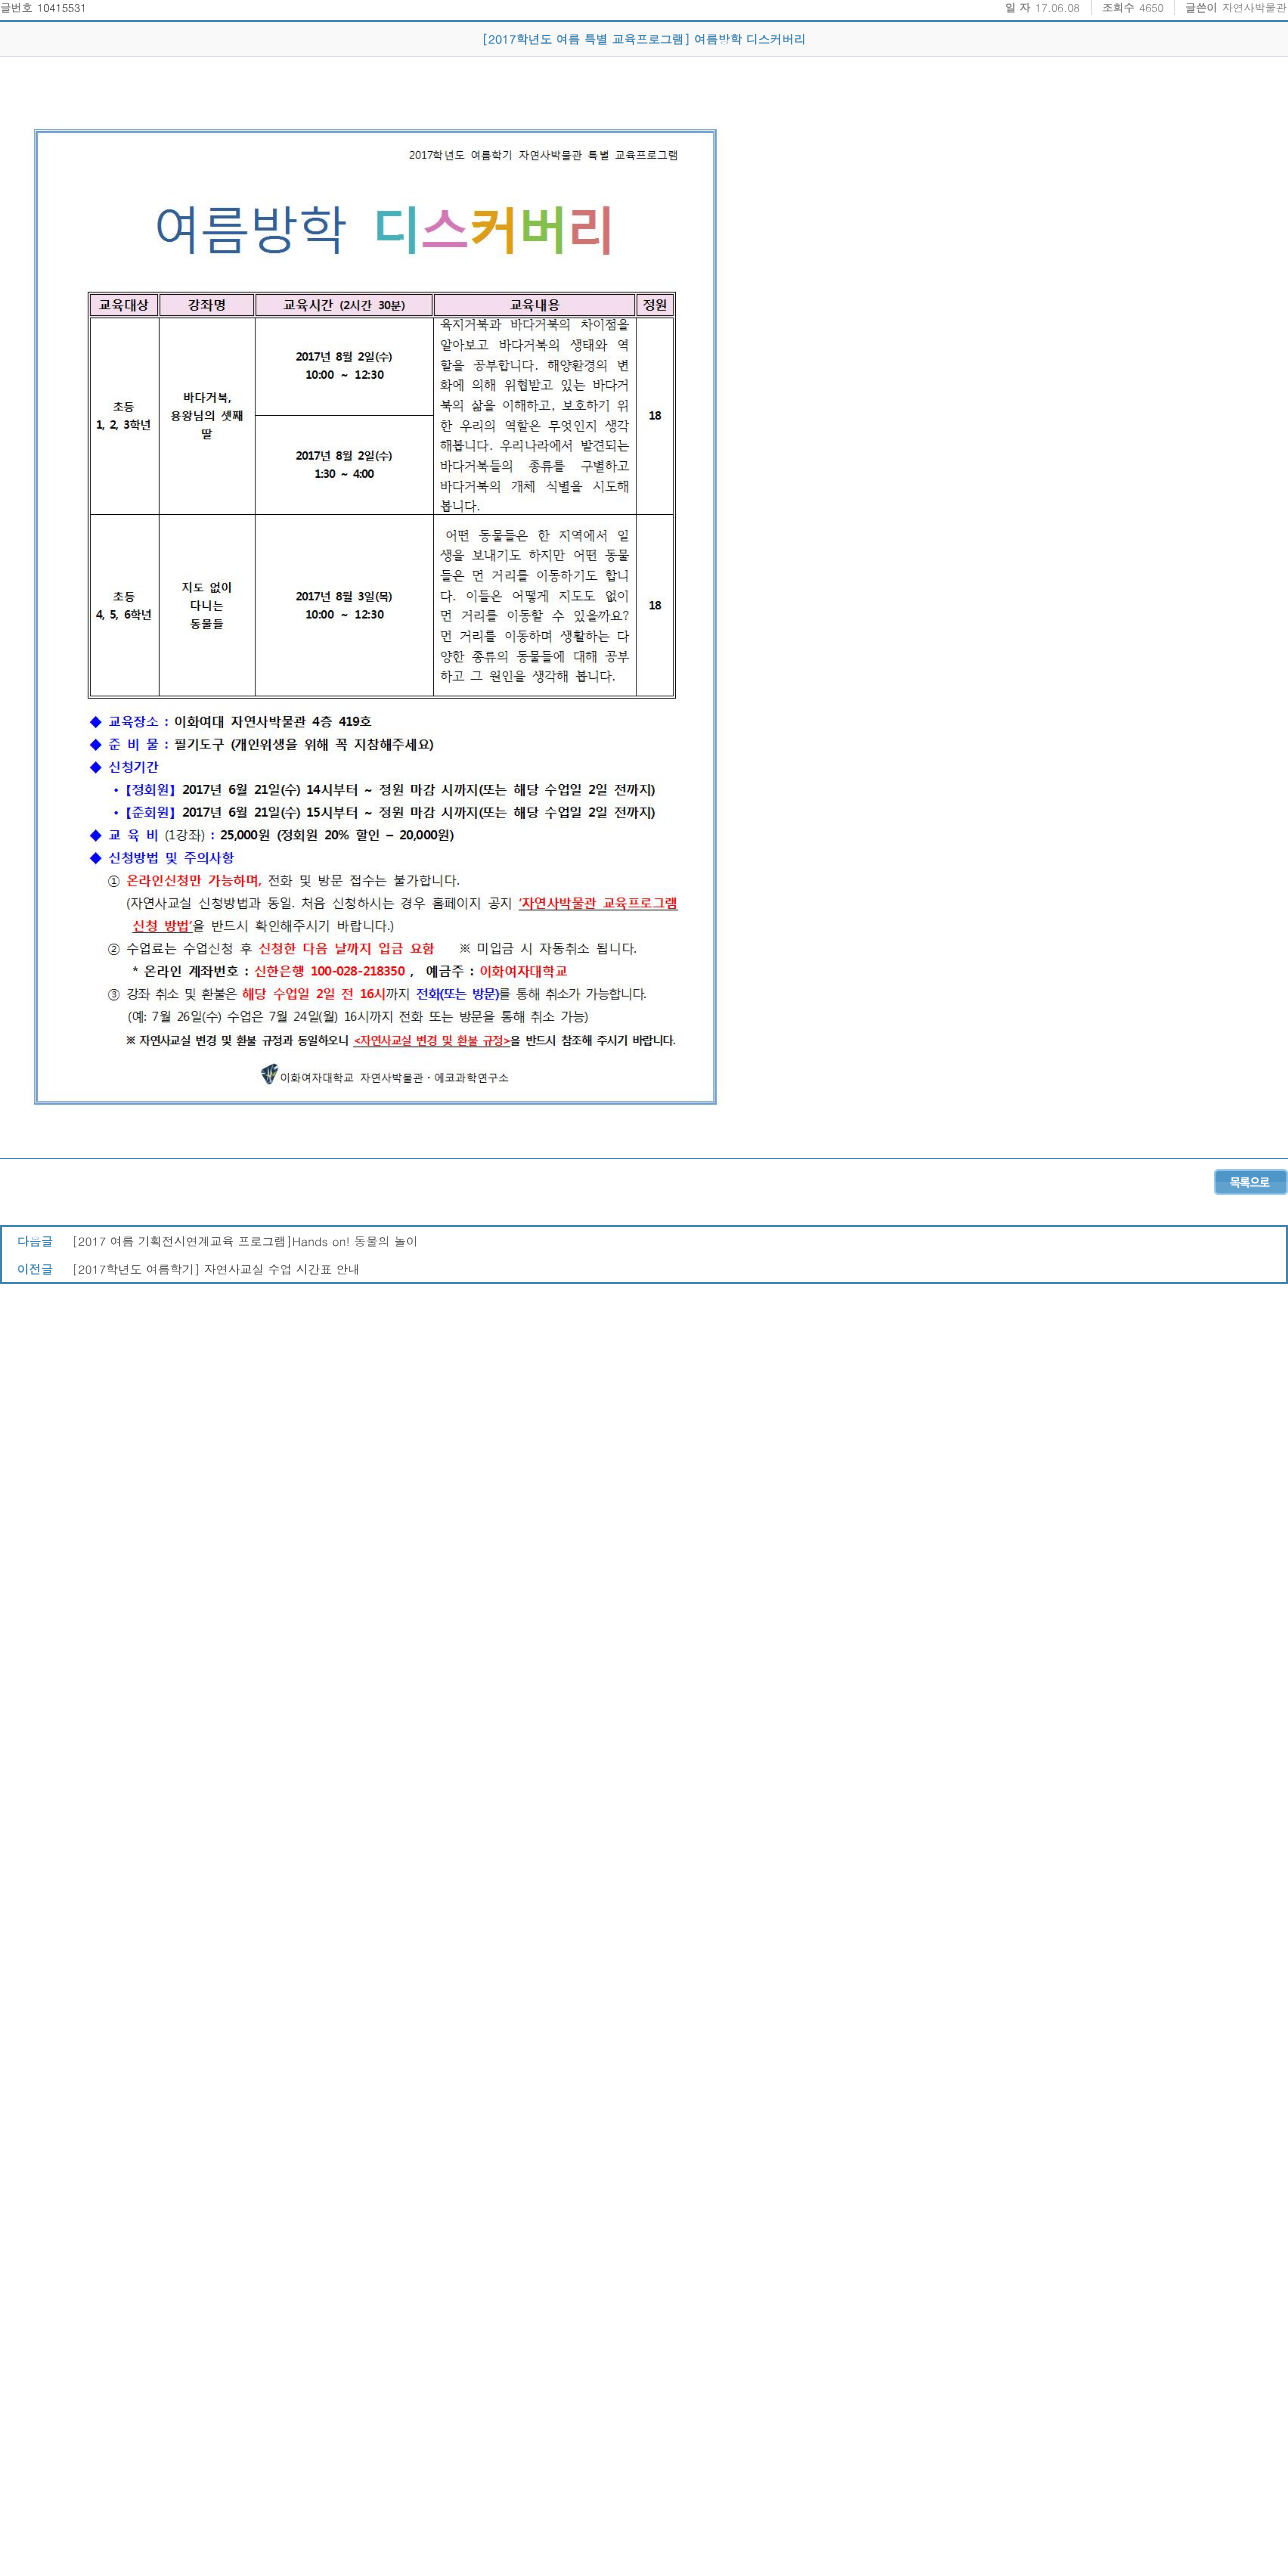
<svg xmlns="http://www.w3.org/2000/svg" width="1288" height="2566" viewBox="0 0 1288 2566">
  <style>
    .t1 { font: bold 11px Dotum; letter-spacing: -0.25px; fill: #7a7a7a; }
    .t2 { font: 11px Dotum; letter-spacing: -0.25px; fill: #333; }
    .t3 { font: 11px Dotum; letter-spacing: -0.25px; fill: #7a7a7a; }
    .t4 { font: bold 12px Dotum; fill: #3e81ad; }
    .t5 { font: 12px Dotum; fill: #333; }
  </style>
  <rect width="100%" height="100%" fill="#fff"/>
  <text x="0" y="12" class="t1">글번호</text>
  <text x="37" y="12" class="t2">10415531</text>
  <text x="1005" y="12" class="t1">일 자</text>
  <rect x="1091" y="0" width="1" height="15" fill="#ddd"/>
  <text x="1035" y="12" class="t3">17.06.08</text>
  <text x="1102" y="12" class="t1">조회수</text>
  <rect x="1174" y="0" width="1" height="15" fill="#ddd"/>
  <text x="1139" y="12" class="t3">4650</text>
  <text x="1185" y="12" class="t1">글쓴이</text>
  <text x="1222" y="12" class="t3">자연사박물관</text>
  <rect x="0" y="20" width="1288" height="2" fill="#3e81ad"/>
  <rect x="0" y="1158" width="1288" height="1" fill="#3e81ad"/>
  <rect x="0" y="22" width="1288" height="34" fill="#f9f9f9"/>
  <text x="482" y="44" class="t4">[2017학년도 여름 특별 교육프로그램] 여름방학 디스커버리</text>
  <rect x="0" y="56" width="1288" height="1" fill="#dcdced"/>
  <image x="28" y="125" width="696" height="981" href="images/1.png"/>
  <image x="1214" y="1169" width="74" height="26" href="images/2.png"/>
  <rect x="1" y="1226" width="1286" height="57" fill="none" stroke="#3e81ad" stroke-width="2"/>
  <text x="17" y="1246" class="t4">다음글</text>
  <text x="72" y="1246" class="t5">[2017 여름 기획전시연계교육 프로그램]Hands on! 동물의 놀이</text>
  <text x="17" y="1274" class="t4">이전글</text>
  <text x="72" y="1274" class="t5">[2017학년도 여름학기] 자연사교실 수업 시간표 안내</text>
</svg>
